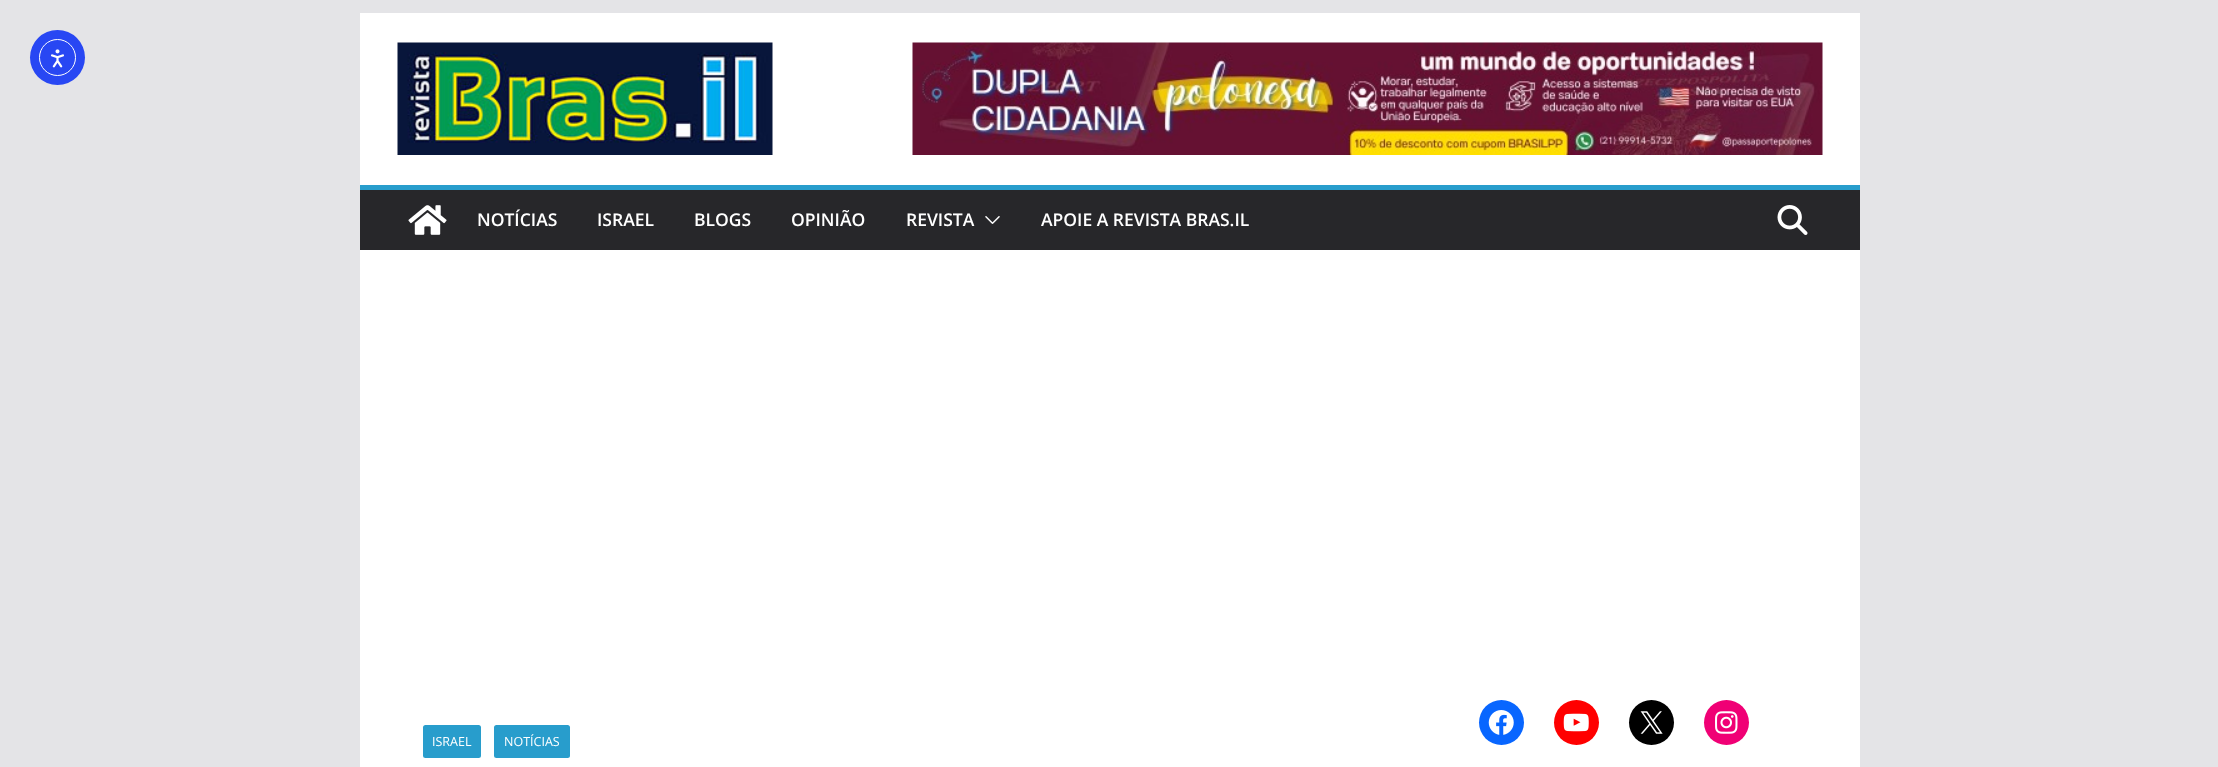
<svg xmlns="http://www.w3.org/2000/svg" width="2218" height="767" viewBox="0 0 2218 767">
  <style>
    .t1 { font: 600 17.5px Open Sans; fill: #fff; }
    .t2 { font: 12.5px Open Sans; fill: #fff; }
  </style>
  <rect width="100%" height="100%" fill="#e4e4e7"/>
  <circle cx="57.5" cy="57.5" r="27.5" fill="#2847f3"/>
  <circle cx="57.5" cy="57.5" r="18" fill="none" stroke="#fff"/>
  <image x="50" y="49" width="14" height="19" href="images/1.png"/>
  <rect x="360" y="13" width="1500" height="754" fill="#fff"/>
  <image x="397" y="42" width="376" height="113" href="images/2.png"/>
  <image x="912" y="42" width="911" height="113" href="images/3.png"/>
  <rect x="360" y="190" width="1500" height="60" fill="#27272a"/>
  <rect x="360" y="185" width="1500" height="5" fill="#289dcc"/>
  <image x="408" y="205" width="39" height="30" href="images/4.png"/>
  <text x="477" y="226" class="t1">NOTÍCIAS</text>
  <text x="597" y="226" class="t1">ISRAEL</text>
  <text x="694" y="226" class="t1">BLOGS</text>
  <text x="791" y="226" class="t1">OPINIÃO</text>
  <text x="906" y="226" class="t1">REVISTA</text>
  <image x="985" y="216" width="15" height="8" href="images/5.png"/>
  <text x="1041" y="226" class="t1">APOIE A REVISTA BRAS.IL</text>
  <image x="1777" y="205" width="31" height="30" href="images/6.png"/>
  <rect x="423" y="725" width="58" height="33" rx="2.5" fill="#289dcc"/>
  <text x="432" y="746" class="t2">ISRAEL</text>
  <rect x="494" y="725" width="76" height="33" rx="2.5" fill="#289dcc"/>
  <text x="504" y="746" class="t2">NOTÍCIAS</text>
  <circle cx="1501.5" cy="722.5" r="22.5" fill="#0866ff"/>
  <image x="1488" y="710" width="26" height="25" href="images/7.png"/>
  <circle cx="1576.5" cy="722.5" r="22.5" fill="#f00"/>
  <image x="1563" y="713" width="26" height="19" href="images/8.png"/>
  <circle cx="1651.5" cy="722.5" r="22.5" fill="#000"/>
  <image x="1640" y="711" width="23" height="23" href="images/9.png"/>
  <circle cx="1726.5" cy="722.5" r="22.5" fill="#f00075"/>
  <image x="1715" y="711" width="23" height="23" href="images/10.png"/>
</svg>
